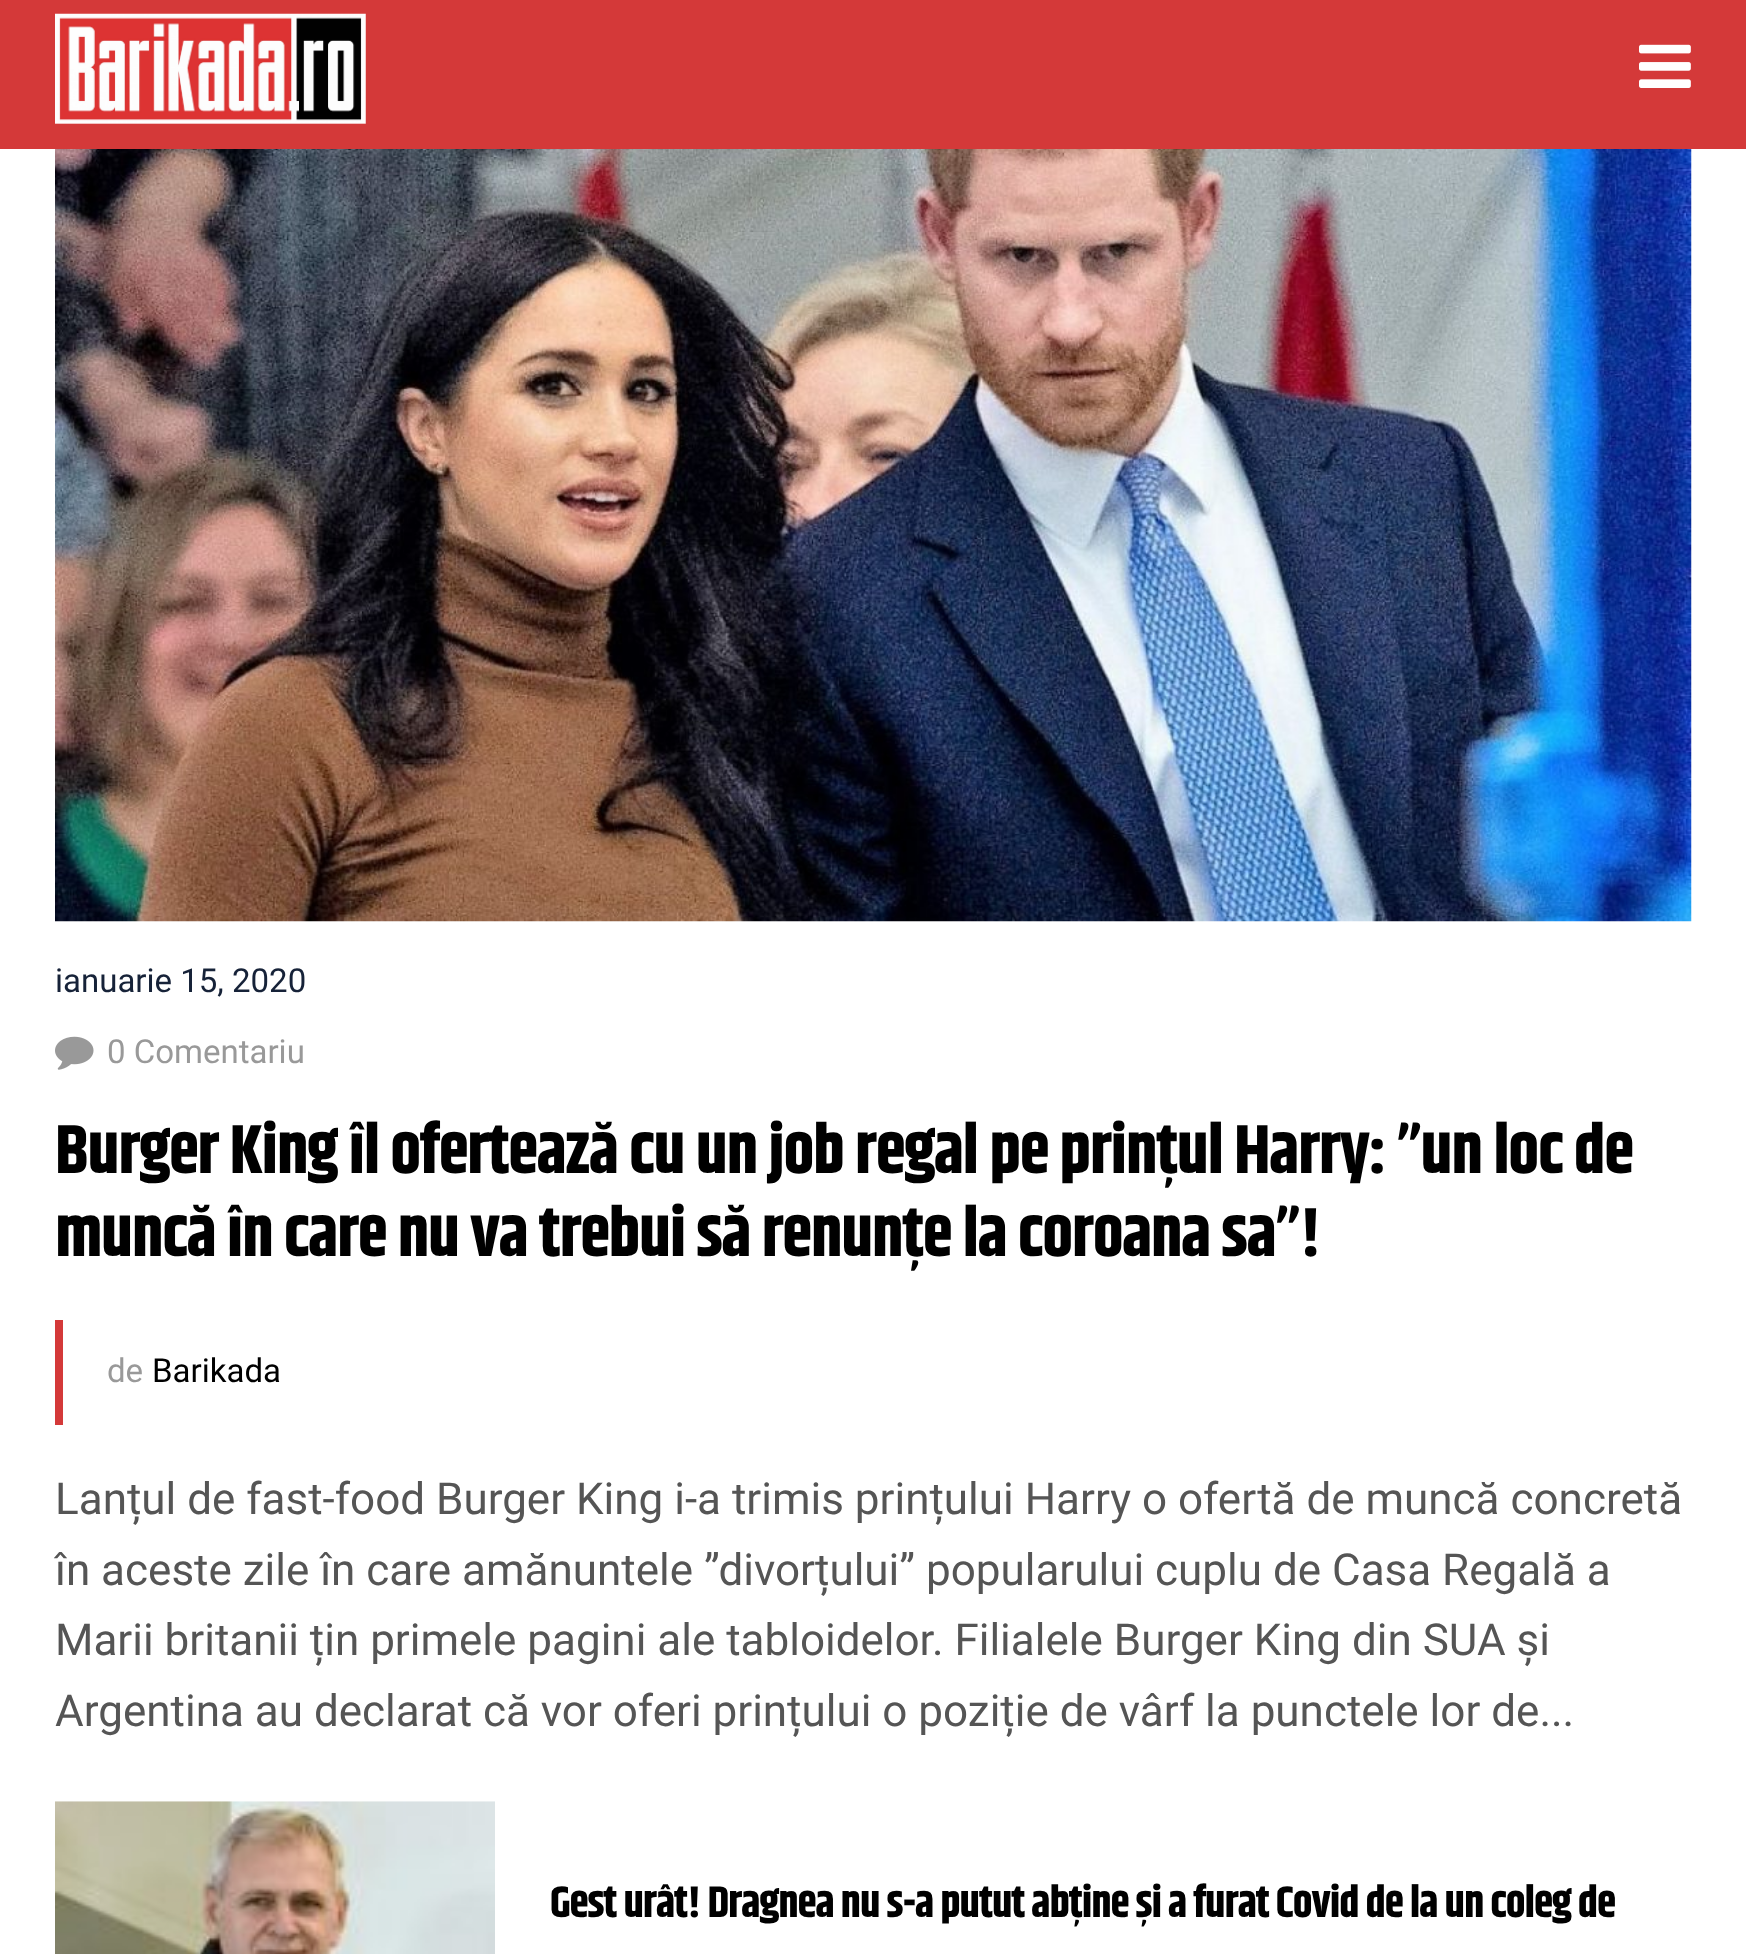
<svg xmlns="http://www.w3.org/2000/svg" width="1746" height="1954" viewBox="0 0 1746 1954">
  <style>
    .t1 { font: 33px Roboto; fill: #162238; }
    .t2 { font: 33px Roboto; fill: #999; }
    .t3 { font: bold 68.75px Khand; letter-spacing: -1.38px; fill: #000; }
    .t4 { font: 33px Roboto; fill: #000; }
    .t5 { font: 44px Roboto; fill: #555; }
    .t6 { font: bold 44px Khand; letter-spacing: -1.1px; fill: #000; }
  </style>
  <rect width="100%" height="100%" fill="#fff"/>
  <rect x="0" y="0" width="1746" height="149" fill="#d43939"/>
  <image x="55" y="13" width="311" height="111" href="images/1.png"/>
  <image x="1639" y="44" width="52" height="44" href="images/2.png"/>
  <image x="55" y="149" width="1637" height="773" href="images/3.png"/>
  <text x="55" y="992" class="t1">ianuarie 15, 2020</text>
  <image x="55" y="1036" width="39" height="34" href="images/4.png"/>
  <text x="107" y="1063" class="t2">0 Comentariu</text>
  <text x="55" y="1173" class="t3">Burger King îl ofertează cu un job regal pe prințul Harry: ”un loc de</text>
  <text x="55" y="1256" class="t3">muncă în care nu va trebui să renunțe la coroana sa”!</text>
  <rect x="55" y="1320" width="8" height="105" fill="#d43939"/>
  <text x="107" y="1382" class="t2">de</text>
  <text x="152" y="1382" class="t4">Barikada</text>
  <text x="55" y="1514" class="t5">Lanțul de fast-food Burger King i-a trimis prințului Harry o ofertă de muncă concretă</text>
  <text x="55" y="1585" class="t5">în aceste zile în care amănuntele ”divorțului” popularului cuplu de Casa Regală a</text>
  <text x="55" y="1655" class="t5">Marii britanii țin primele pagini ale tabloidelor. Filialele Burger King din SUA și</text>
  <text x="55" y="1726" class="t5">Argentina au declarat că vor oferi prințului o poziție de vârf la punctele lor de...</text>
  <image x="55" y="1801" width="440" height="153" href="images/5.png"/>
  <text x="550" y="1917" class="t6">Gest urât! Dragnea nu s-a putut abține și a furat Covid de la un coleg de</text>
</svg>
